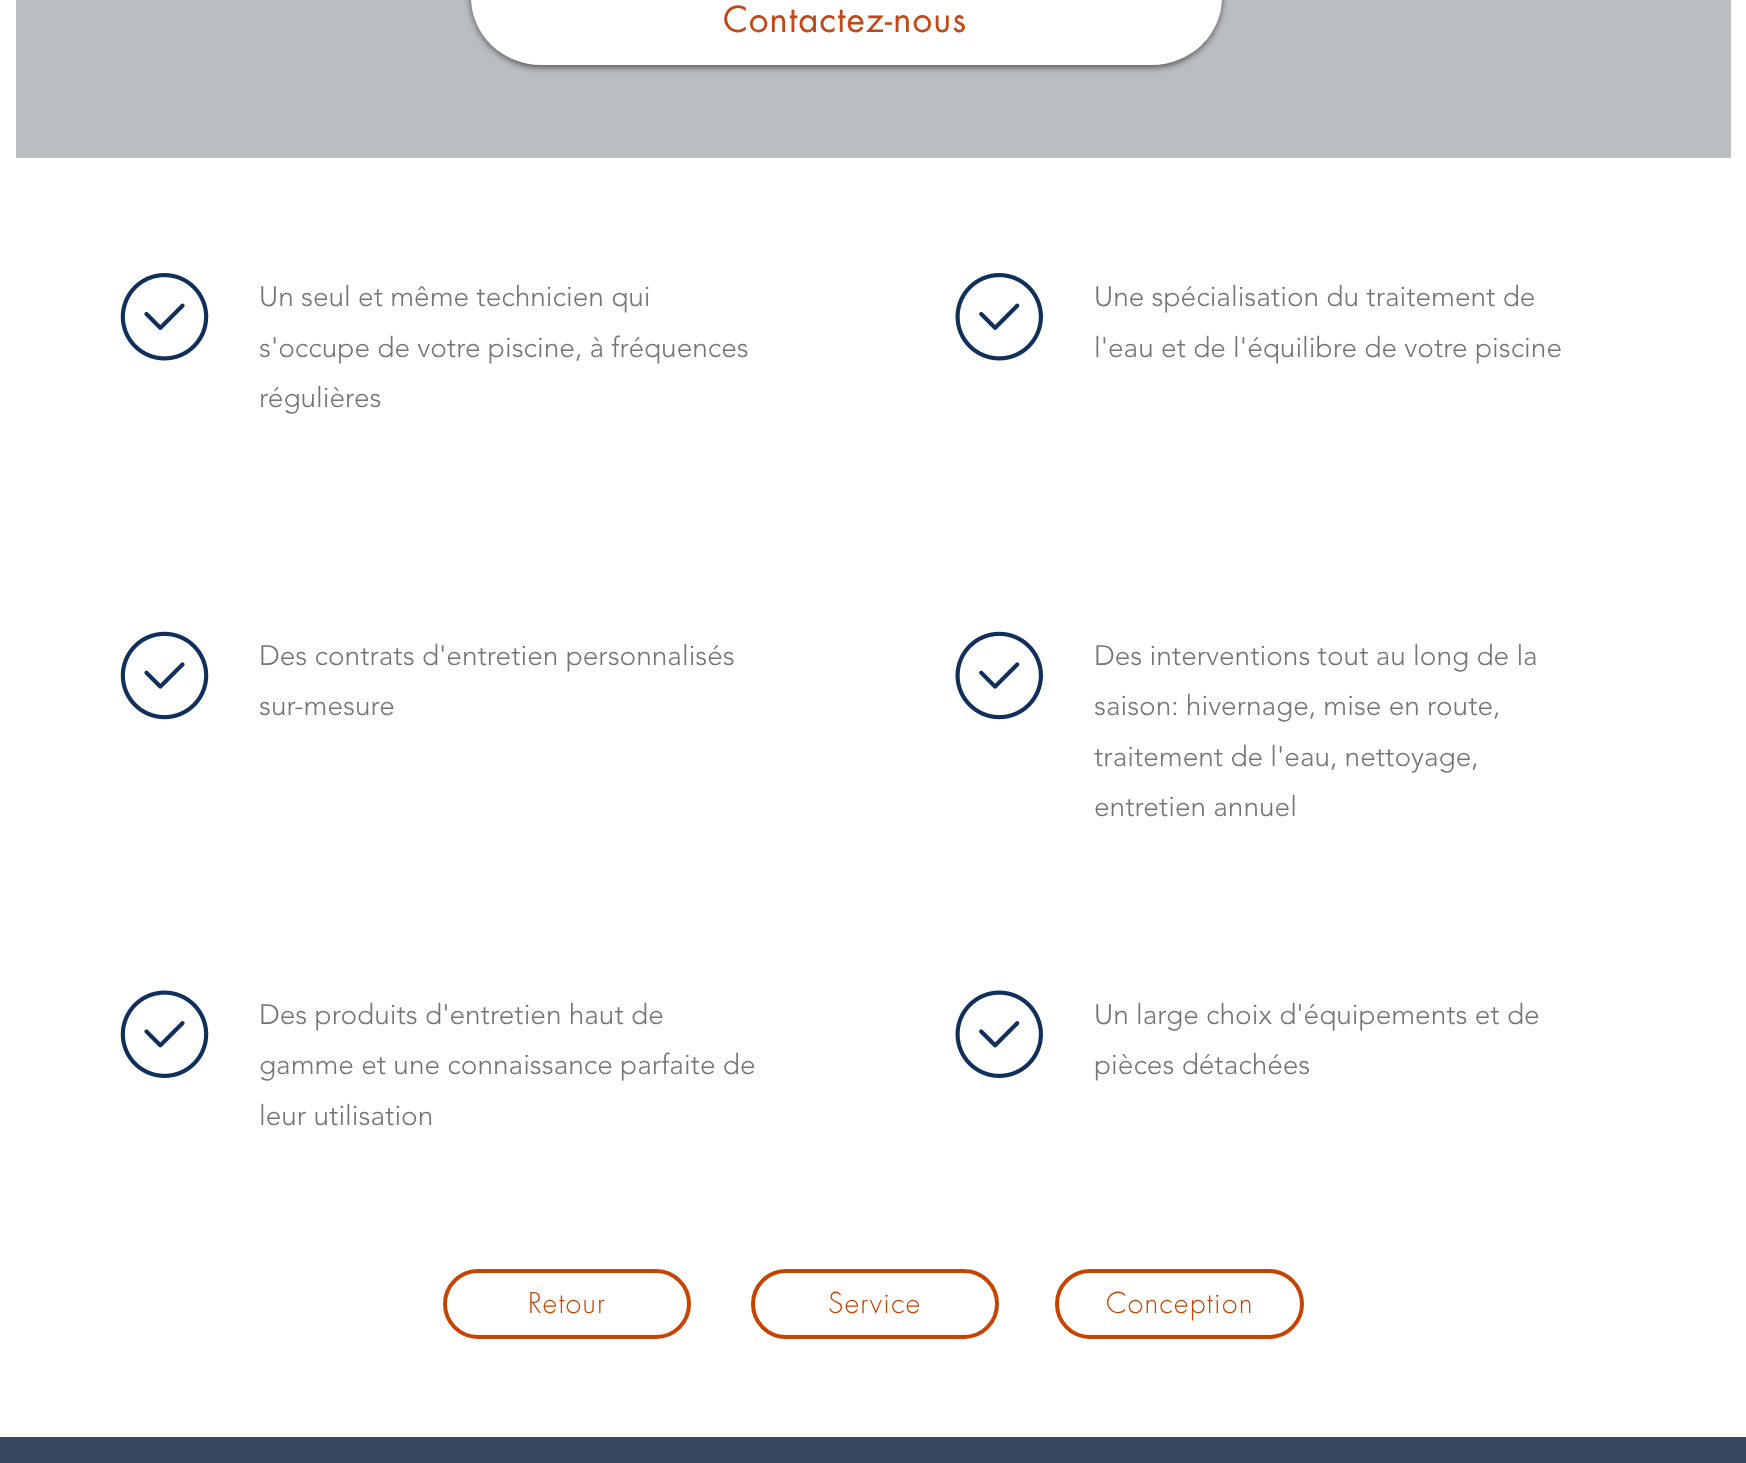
<svg xmlns="http://www.w3.org/2000/svg" width="1746" height="1463" viewBox="0 0 1746 1463">
  <style>
    .t1 { font: 35px futura; letter-spacing: 1px; fill: #c24818; }
    .t2 { font: 300 28px 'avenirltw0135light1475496'; fill: #757575; }
    .t3 { font: 300 28px futura; letter-spacing: 1.4px; fill: #c74300; }
  </style>
  <rect width="100%" height="100%" fill="#fff"/>
  <rect x="16" y="0" width="1715" height="158" fill="#bbbec1"/>
  <rect x="471" y="-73" width="751" height="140" rx="70" fill="#00000099" filter="blur(3.5px)"/>
  <rect x="471" y="-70" width="751" height="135" rx="70" fill="#fff"/>
  <text x="723" y="32" class="t1">Contactez-nous</text>
  <image x="120" y="273" width="89" height="88" href="images/1.png"/>
  <text x="259" y="306" class="t2">Un seul et même technicien qui</text>
  <text x="259" y="357" class="t2">s'occupe de votre piscine, à fréquences</text>
  <text x="259" y="407" class="t2">régulières</text>
  <image x="120" y="631" width="89" height="89" href="images/2.png"/>
  <text x="259" y="665" class="t2">Des contrats d'entretien personnalisés</text>
  <text x="259" y="715" class="t2">sur-mesure</text>
  <image x="120" y="990" width="89" height="88" href="images/3.png"/>
  <text x="259" y="1024" class="t2">Des produits d'entretien haut de</text>
  <text x="259" y="1074" class="t2">gamme et une connaissance parfaite de</text>
  <text x="259" y="1125" class="t2">leur utilisation</text>
  <image x="955" y="273" width="88" height="88" href="images/4.png"/>
  <text x="1094" y="306" class="t2">Une spécialisation du traitement de</text>
  <text x="1094" y="357" class="t2">l'eau et de l'équilibre de votre piscine</text>
  <image x="955" y="631" width="88" height="89" href="images/5.png"/>
  <text x="1094" y="665" class="t2">Des interventions tout au long de la</text>
  <text x="1094" y="715" class="t2">saison: hivernage, mise en route,</text>
  <text x="1094" y="766" class="t2">traitement de l'eau, nettoyage,</text>
  <text x="1094" y="816" class="t2">entretien annuel</text>
  <image x="955" y="990" width="88" height="88" href="images/6.png"/>
  <text x="1094" y="1024" class="t2">Un large choix d'équipements et de</text>
  <text x="1094" y="1074" class="t2">pièces détachées</text>
  <rect x="445" y="1271" width="244" height="66" rx="33" fill="none" stroke="#c74300" stroke-width="4"/>
  <text x="528" y="1313" class="t3">Retour</text>
  <rect x="753" y="1271" width="244" height="66" rx="33" fill="none" stroke="#c74300" stroke-width="4"/>
  <text x="828" y="1313" class="t3">Service</text>
  <rect x="1057" y="1271" width="245" height="66" rx="33" fill="none" stroke="#c74300" stroke-width="4"/>
  <text x="1106" y="1313" class="t3">Conception</text>
  <rect x="0" y="1437" width="1746" height="26" fill="#39475e"/>
</svg>
